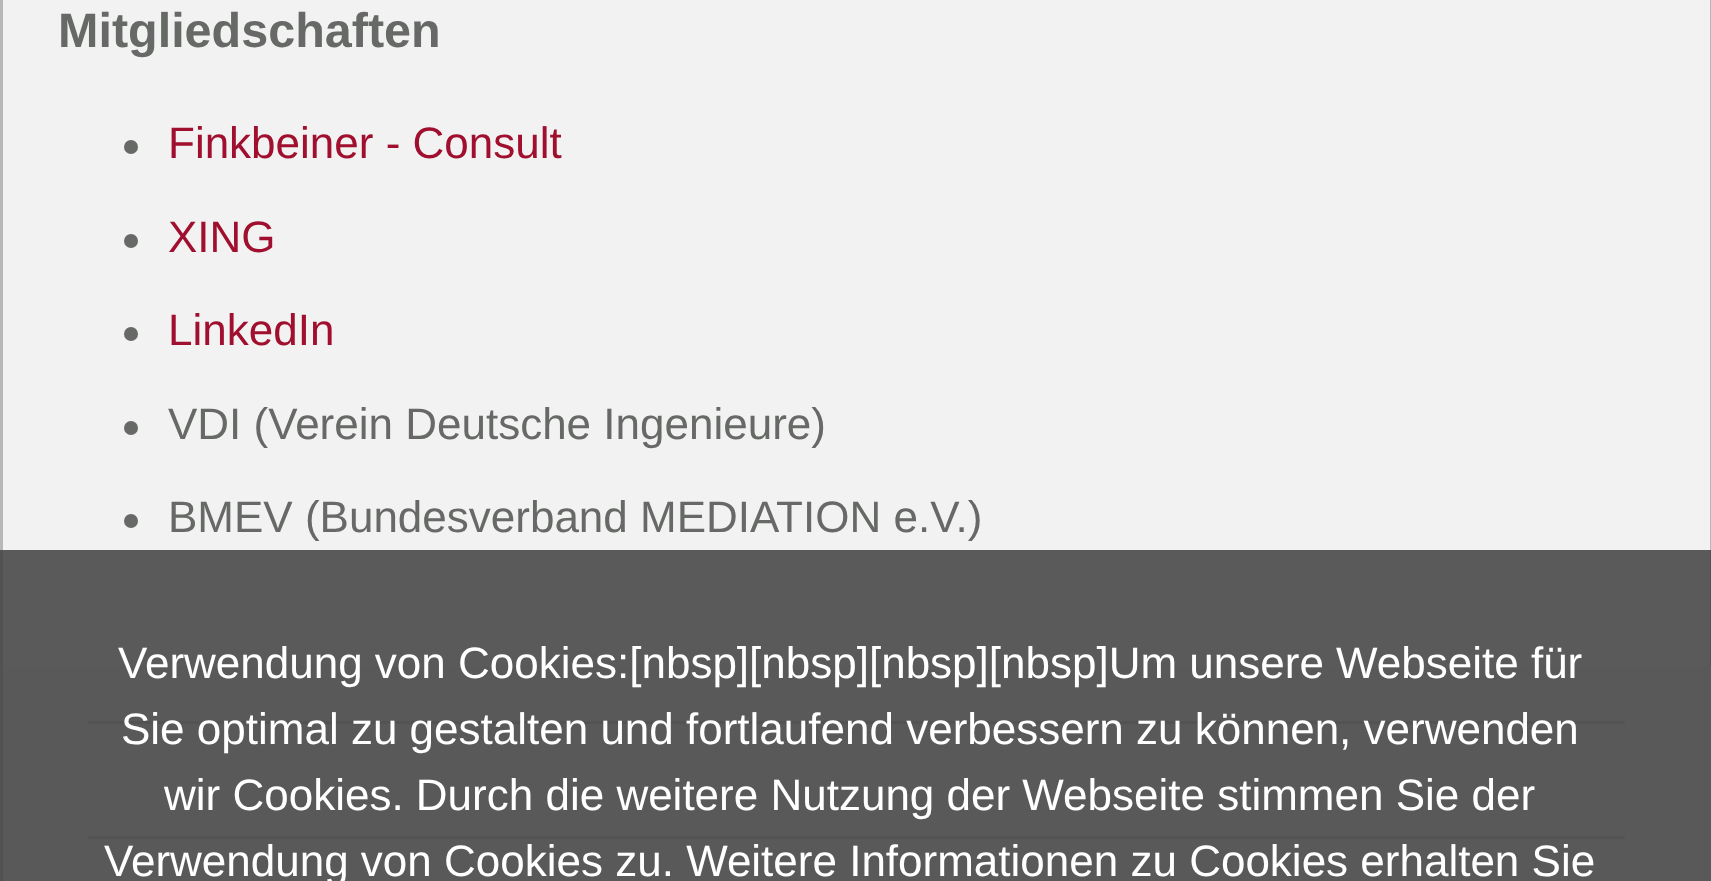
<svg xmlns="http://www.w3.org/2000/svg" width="1711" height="881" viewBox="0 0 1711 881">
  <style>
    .t1 { font: bold 48.5px Liberation Sans; fill: #666966; }
    .t2 { font: 44px Liberation Sans; fill: #a00f2e; }
    .t3 { font: 44px Liberation Sans; fill: #666966; }
    .t4 { font: 44px Liberation Sans; fill: #fff; }
  </style>
  <rect width="100%" height="100%" fill="#f2f2f2"/>
  <rect x="1.5" y="-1.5" width="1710" height="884" fill="none" stroke="#b8b8b8" stroke-width="3"/>
  <text x="58" y="47" class="t1">Mitgliedschaften</text>
  <circle cx="131" cy="147" r="7" fill="#666966"/>
  <text x="168" y="158" class="t2">Finkbeiner - Consult</text>
  <circle cx="131" cy="241" r="7" fill="#666966"/>
  <text x="168" y="252" class="t2">XING</text>
  <circle cx="131" cy="334" r="7" fill="#666966"/>
  <text x="168" y="345" class="t2">LinkedIn</text>
  <circle cx="131" cy="428" r="7" fill="#666966"/>
  <text x="168" y="439" class="t3">VDI (Verein Deutsche Ingenieure)</text>
  <circle cx="131" cy="521" r="7" fill="#666966"/>
  <text x="168" y="532" class="t3">BMEV (Bundesverband MEDIATION e.V.)</text>
  <rect x="3" y="666" width="1708" height="215" fill="#e6e6e6"/>
  <rect x="88" y="721" width="1537" height="3" fill="#c0c0c0"/>
  <rect x="88" y="836" width="1537" height="3" fill="#c0c0c0"/>
  <rect x="0" y="550" width="1711" height="331" fill="#404040d9"/>
  <text x="118" y="678" class="t4">Verwendung von Cookies:[nbsp][nbsp][nbsp][nbsp]Um unsere Webseite für</text>
  <text x="121" y="744" class="t4">Sie optimal zu gestalten und fortlaufend verbessern zu können, verwenden</text>
  <text x="164" y="810" class="t4">wir Cookies. Durch die weitere Nutzung der Webseite stimmen Sie der</text>
  <text x="104" y="876" class="t4">Verwendung von Cookies zu. Weitere Informationen zu Cookies erhalten Sie</text>
</svg>
